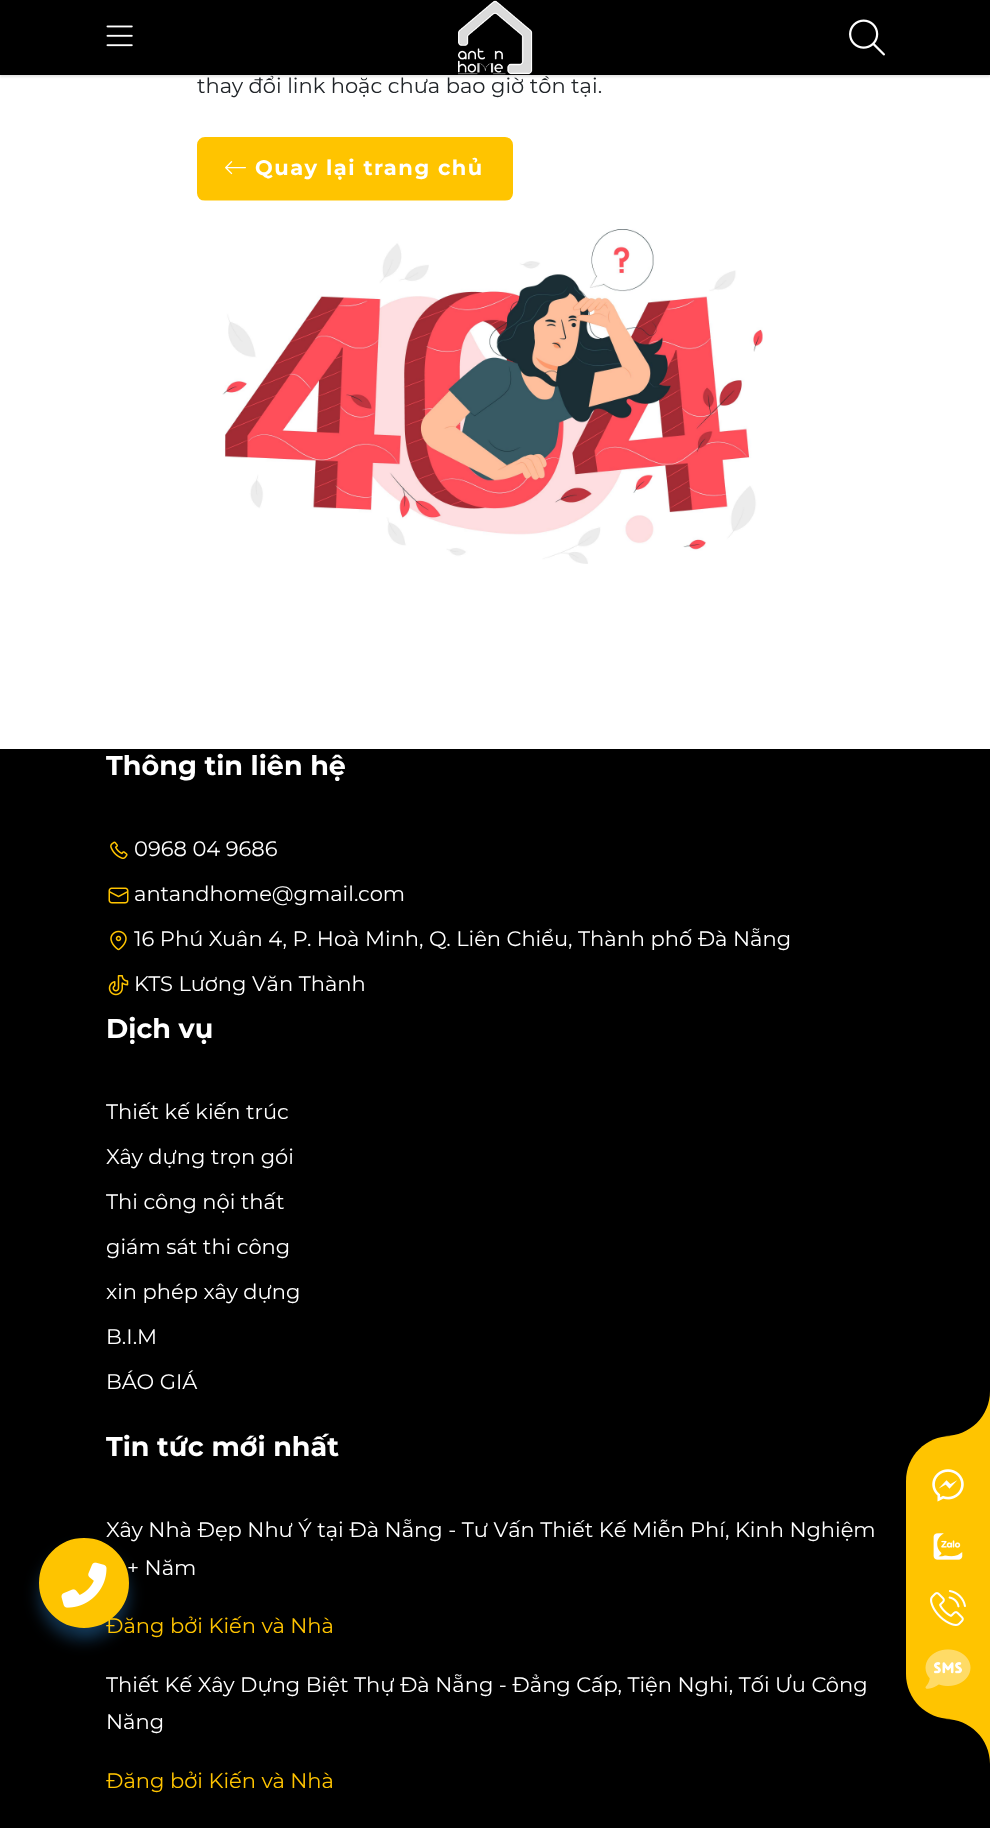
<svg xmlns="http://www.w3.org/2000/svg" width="990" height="1828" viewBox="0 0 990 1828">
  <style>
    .t1 { font: 21px Montserrat; fill: #212529; }
    .t2 { font: bold 21px Montserrat; letter-spacing: 1.5px; fill: #fff; }
    .t3 { font: 21px Montserrat; fill: #fff; }
    .t4 { font: 21px Montserrat; fill: #ffc400; }
    .t5 { font: bold 27px Montserrat; fill: #fff; }
  </style>
  <rect width="100%" height="100%" fill="#fff"/>
  <rect x="0" y="2" width="990" height="75" fill="#a5a5a54d" filter="blur(1px)"/>
  <rect x="0" y="0" width="990" height="75" fill="#000"/>
  <image x="106" y="25" width="27" height="22" href="images/1.png"/>
  <image x="458" y="0" width="75" height="75" href="images/2.png"/>
  <image x="849" y="19" width="36" height="37" href="images/3.png"/>
  <text x="197" y="93" class="t1">thay đổi link hoặc chưa bao giờ tồn tại.</text>
  <rect x="198" y="138" width="314" height="62" rx="7" fill="#ffc400" stroke="#ffc400" stroke-width="2"/>
  <image x="225" y="161" width="21" height="14" href="images/4.png"/>
  <text x="255" y="175" class="t2">Quay lại trang chủ</text>
  <image x="201" y="200" width="562" height="364" href="images/5.png"/>
  <rect x="0" y="749" width="990" height="1079" fill="#000"/>
  <rect x="39" y="1550" width="90" height="90" rx="45" fill="#38a3fd4d" filter="blur(7.5px)"/>
  <rect x="84" y="1557" width="6" height="75" rx="6" fill="#38a3fd4d" filter="blur(7.5px)"/>
  <text x="106" y="1537" class="t3">Xây Nhà Đẹp Như Ý tại Đà Nẵng - Tư Vấn Thiết Kế Miễn Phí, Kinh Nghiệm</text>
  <text x="127" y="1575" class="t3">+ Năm</text>
  <text x="106" y="1633" class="t4">Đăng bởi Kiến và Nhà</text>
  <circle cx="84" cy="1583" r="43.5" fill="#fec400" stroke="#fec400" stroke-width="3"/>
  <image x="61" y="1562" width="46" height="46" href="images/6.png"/>
  <text x="106" y="775" class="t5">Thông tin liên hệ</text>
  <image x="110" y="841" width="18" height="18" href="images/7.png"/>
  <text x="134" y="856" class="t3">0968 04 9686</text>
  <image x="108" y="887" width="21" height="17" href="images/8.png"/>
  <text x="134" y="901" class="t3">antandhome@gmail.com</text>
  <image x="110" y="930" width="17" height="21" href="images/9.png"/>
  <text x="134" y="946" class="t3">16 Phú Xuân 4, P. Hoà Minh, Q. Liên Chiểu, Thành phố Đà Nẵng</text>
  <image x="108" y="975" width="21" height="21" href="images/10.png"/>
  <text x="134" y="991" class="t3">KTS Lương Văn Thành</text>
  <text x="106" y="1038" class="t5">Dịch vụ</text>
  <text x="106" y="1119" class="t3">Thiết kế kiến trúc</text>
  <text x="106" y="1164" class="t3">Xây dựng trọn gói</text>
  <text x="106" y="1209" class="t3">Thi công nội thất</text>
  <text x="106" y="1254" class="t3">giám sát thi công</text>
  <text x="106" y="1299" class="t3">xin phép xây dựng</text>
  <text x="106" y="1344" class="t3">B.I.M</text>
  <text x="106" y="1389" class="t3">BÁO GIÁ</text>
  <text x="106" y="1456" class="t5">Tin tức mới nhất</text>
  <text x="106" y="1692" class="t3">Thiết Kế Xây Dựng Biệt Thự Đà Nẵng - Đẳng Cấp, Tiện Nghi, Tối Ưu Công</text>
  <text x="106" y="1729" class="t3">Năng</text>
  <text x="106" y="1788" class="t4">Đăng bởi Kiến và Nhà</text>
  <path d="M951 1436H990V1719H951C926 1719 906 1699 906 1674V1481C906 1456 926 1436 951 1436Z" fill="#ffc400"/>
  <path d="M945 1436H990C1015 1436 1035 1416 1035 1391H990C990 1416 970 1436 945 1436Z" fill="#ffc400"/>
  <image x="932" y="1469" width="32" height="33" href="images/11.png"/>
  <image x="933" y="1533" width="30" height="27" href="images/12.png"/>
  <image x="930" y="1590" width="36" height="36" href="images/13.png"/>
  <image x="933" y="1662" width="29" height="12" href="images/15.png"/>
  <image x="925" y="1649" width="46" height="40" href="images/14.png"/>
  <path d="M945 1719C970 1719 990 1739 990 1764H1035C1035 1739 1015 1719 990 1719Z" fill="#ffc400"/>
</svg>
